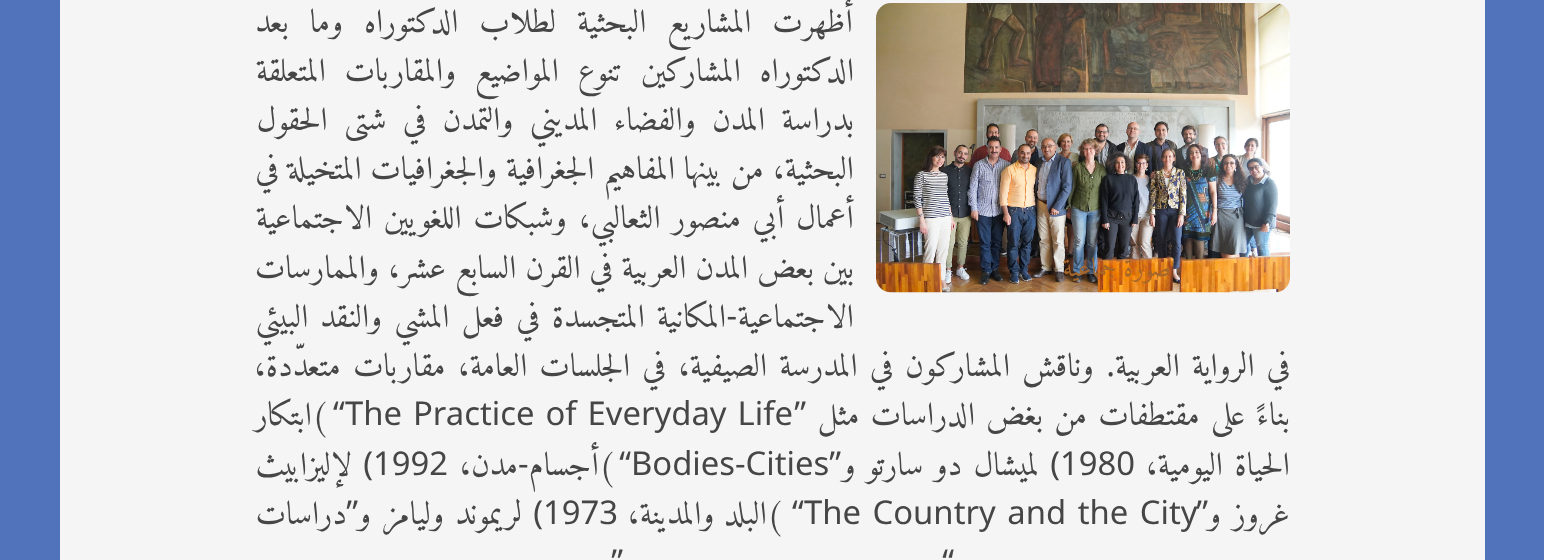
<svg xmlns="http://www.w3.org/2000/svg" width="1544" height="560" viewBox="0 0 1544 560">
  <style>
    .t1 { font: 32.8px Amiri; direction: rtl; fill: #464646; }
    .t2 { font: 32.8px Noto Sans; direction: rtl; fill: #464646; }
    .t3 { font: 32.8px Noto Sans; fill: #464646; }
    .t4 { font: 26.25px Amiri; direction: rtl; fill: #a6672b; }
  </style>
  <rect width="100%" height="100%" fill="#5173bb"/>
  <rect x="60" y="0" width="1425" height="560" fill="#f5f5f5"/>
  <text x="853" y="32" word-spacing="11.25" class="t1">أظهرت المشاريع البحثية لطلاب الدكتوراه وما بعد</text>
  <text x="854" y="81" word-spacing="9" class="t1">الدكتوراه المشاركين تنوع المواضيع والمقاربات المتعلقة</text>
  <text x="854" y="130" word-spacing="6.75" class="t1">بدراسة المدن والفضاء المديني والتمدن في شتى الحقول</text>
  <text x="854" y="179" word-spacing="-0.75" class="t1">البحثية، من بينها المفاهيم الجغرافية والجغرافيات المتخيلة في</text>
  <text x="854" y="228" word-spacing="2" class="t1">أعمال أبي منصور الثعالبي، وشبكات اللغويين الاجتماعية</text>
  <text x="854" y="278" word-spacing="-0.75" class="t1">بين بعض المدن العربية في القرن السابع عشر، والممارسات</text>
  <text x="854" y="327" class="t1">الاجتماعية</text>
  <text x="737" y="327" class="t2">-</text>
  <text x="726" y="327" word-spacing="2.5" class="t1">المكانية المتجسدة في فعل المشي والنقد البيئي</text>
  <text x="1290" y="376" word-spacing="2.5" class="t1">في الرواية العربية</text>
  <text x="1115" y="376" class="t2">.</text>
  <text x="1094" y="376" word-spacing="2.5" class="t1">وناقش المشاركون في المدرسة الصيفية، في الجلسات العامة، مقاربات متعدّدة،</text>
  <text x="1290" y="425" word-spacing="1.5" class="t1">بناءً على مقتطفات من بغض الدراسات مثل</text>
  <text x="806" y="425" class="t2">”</text>
  <text x="345" y="425" word-spacing="2.5" class="t3">The Practice of Everyday Life</text>
  <text x="333" y="425" class="t3">“</text>
  <text x="327" y="425" class="t1">(ابتكار</text>
  <text x="1290" y="475" word-spacing="2" class="t1">الحياة اليومية،</text>
  <text x="1060" y="475" class="t3">1980</text>
  <text x="1060" y="475" class="t2">)</text>
  <text x="1039" y="475" word-spacing="1.5" class="t1">لميشال دو سارتو و</text>
  <text x="841" y="475" class="t2">”</text>
  <text x="631" y="475" class="t3">Bodies-Cities</text>
  <text x="631" y="475" class="t2">“</text>
  <text x="614" y="475" class="t1">(أجسام</text>
  <text x="518" y="475" class="t3">-</text>
  <text x="518" y="475" class="t1">مدن،</text>
  <text x="373" y="475" class="t3">1992</text>
  <text x="373" y="475" class="t2">)</text>
  <text x="352" y="475" class="t1">لإليزابيث</text>
  <text x="1290" y="524" word-spacing="2" class="t1">غروز و</text>
  <text x="792" y="524" class="t3">“</text>
  <text x="804" y="524" word-spacing="3" class="t3">The Country and the City</text>
  <text x="1208" y="524" class="t2">”</text>
  <text x="782" y="524" class="t1">(البلد والمدينة،</text>
  <text x="543" y="524" class="t3">1973</text>
  <text x="543" y="524" class="t2">)</text>
  <text x="358" y="524" class="t2">”</text>
  <text x="522" y="524" word-spacing="2" class="t1">لريموند وليامز و</text>
  <text x="347" y="524" class="t1">دراسات</text>
  <text x="954" y="573" class="t2">“</text>
  <text x="623" y="573" class="t2">”</text>
  <image x="876" y="3" width="414" height="290" href="images/1.png"/>
  <text x="1171" y="276" word-spacing="-0.75" class="t4">صورة جماعية</text>
</svg>
